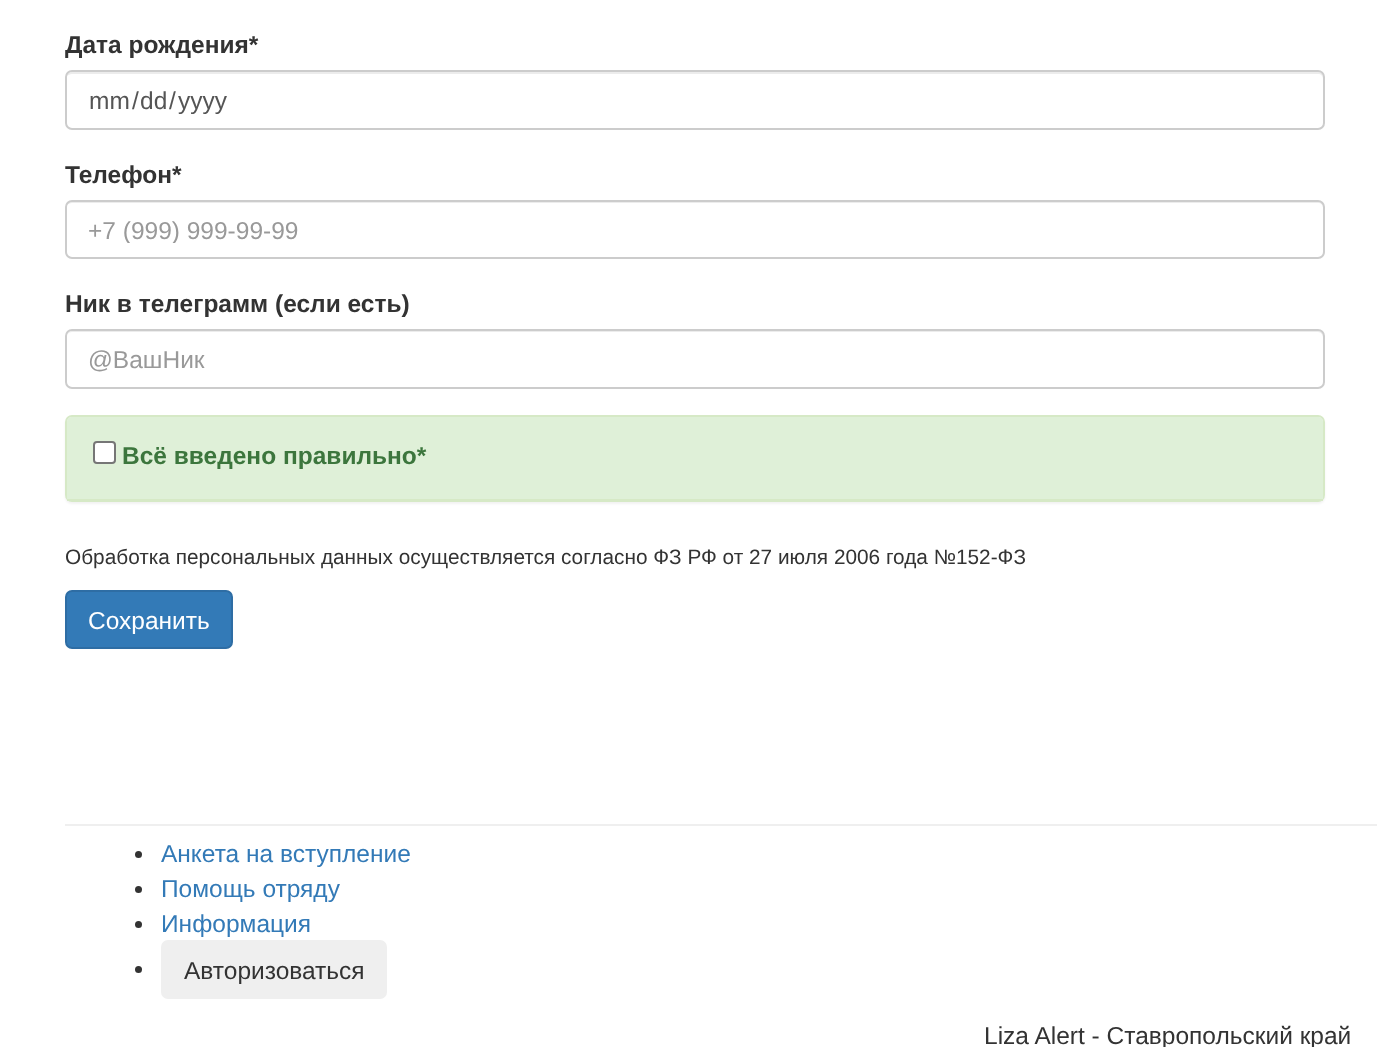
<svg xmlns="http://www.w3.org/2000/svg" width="1388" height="1047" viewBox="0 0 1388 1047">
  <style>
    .t1 { font: bold 24.5px Liberation Sans; fill: #333; }
    .t2 { font: 24.5px Liberation Sans; fill: #555; }
    .t3 { font: 24.5px Liberation Sans; fill: #999; }
    .t4 { font: bold 24.5px Liberation Sans; fill: #3c763d; }
    .t5 { font: 20.8px Liberation Sans; fill: #333; }
    .t6 { font: 24.5px Liberation Sans; fill: #fff; }
    .t7 { font: 24.5px Liberation Sans; fill: #337ab7; }
    .t8 { font: 24.5px Liberation Sans; fill: #333; }
  </style>
  <defs>
    <clipPath id="clip1"><rect x="88" y="215" width="1214" height="28"/></clipPath>
  </defs>
  <rect width="100%" height="100%" fill="#fff"/>
  <text x="65" y="53" class="t1">Дата рождения*</text>
  <path d="M72 74H1318C1321 74 1323 76 1323 79V77C1323 74 1321 72 1318 72H72C70 72 67 74 67 76C68 75 70 74 72 74Z" fill="#ececec"/>
  <rect x="66" y="71" width="1258" height="58" rx="6" fill="none" stroke="#ccc" stroke-width="2"/>
  <text x="89" y="109" class="t2">mm</text>
  <text x="132" y="109" class="t2">/</text>
  <text x="140" y="109" class="t2">dd</text>
  <text x="169" y="109" class="t2">/</text>
  <text x="178" y="109" class="t2">yyyy</text>
  <text x="65" y="183" class="t1">Телефон*</text>
  <path d="M72 203H1318C1321 203 1323 205 1323 208V206C1323 203 1321 201 1318 201H72C70 201 67 203 67 205C68 204 70 203 72 203Z" fill="#ececec"/>
  <rect x="66" y="201" width="1258" height="57" rx="6" fill="none" stroke="#ccc" stroke-width="2"/>
  <g clip-path="url(#clip1)">
    <text x="88" y="239" class="t3">+7 (999) 999-99-99</text>
  </g>
  <text x="65" y="312" class="t1">Ник в телеграмм (если есть)</text>
  <path d="M72 332H1318C1321 332 1323 335 1323 338V336C1323 333 1321 331 1318 331H72C70 331 68 333 67 335C68 333 70 332 72 332Z" fill="#ececec"/>
  <rect x="66" y="330" width="1258" height="58" rx="6" fill="none" stroke="#ccc" stroke-width="2"/>
  <text x="88" y="368" class="t3">@ВашНик</text>
  <rect x="65" y="417" width="1260" height="87" rx="7" fill="#0000000d" filter="blur(1px)"/>
  <rect x="66" y="416" width="1258" height="85" rx="6" fill="none" stroke="#d6e9c6" stroke-width="2"/>
  <path d="M72 417H1318C1321 417 1323 419 1323 422V501H67V422C67 419 69 417 72 417Z" fill="#dff0d8"/>
  <rect x="67" y="499" width="1256" height="2" fill="#d6e9c6"/>
  <rect x="94" y="442" width="21" height="21" rx="3" fill="#fff" stroke="#767676" stroke-width="2"/>
  <text x="122" y="464" class="t4">Всё введено правильно*</text>
  <text x="65" y="564" class="t5">Обработка персональных данных осуществляется согласно ФЗ РФ от 27 июля 2006 года №152-ФЗ</text>
  <rect x="66" y="591" width="166" height="57" rx="6" fill="#337ab7" stroke="#2e6da4" stroke-width="2"/>
  <text x="88" y="629" class="t6">Сохранить</text>
  <rect x="65" y="824" width="1312" height="2" fill="#efefef"/>
  <circle cx="138.5" cy="854.5" r="3.5" fill="#333"/>
  <text x="161" y="862" class="t7">Анкета на вступление</text>
  <circle cx="138.5" cy="889.5" r="3.5" fill="#333"/>
  <text x="161" y="897" class="t7">Помощь отряду</text>
  <circle cx="138.5" cy="924.5" r="3.5" fill="#333"/>
  <text x="161" y="932" class="t7">Информация</text>
  <circle cx="138.5" cy="969.5" r="3.5" fill="#333"/>
  <rect x="161" y="940" width="226" height="59" rx="7" fill="#efefef"/>
  <text x="184" y="979" class="t8">Авторизоваться</text>
  <text x="984" y="1044" class="t8">Liza Alert - Ставропольский край</text>
</svg>
